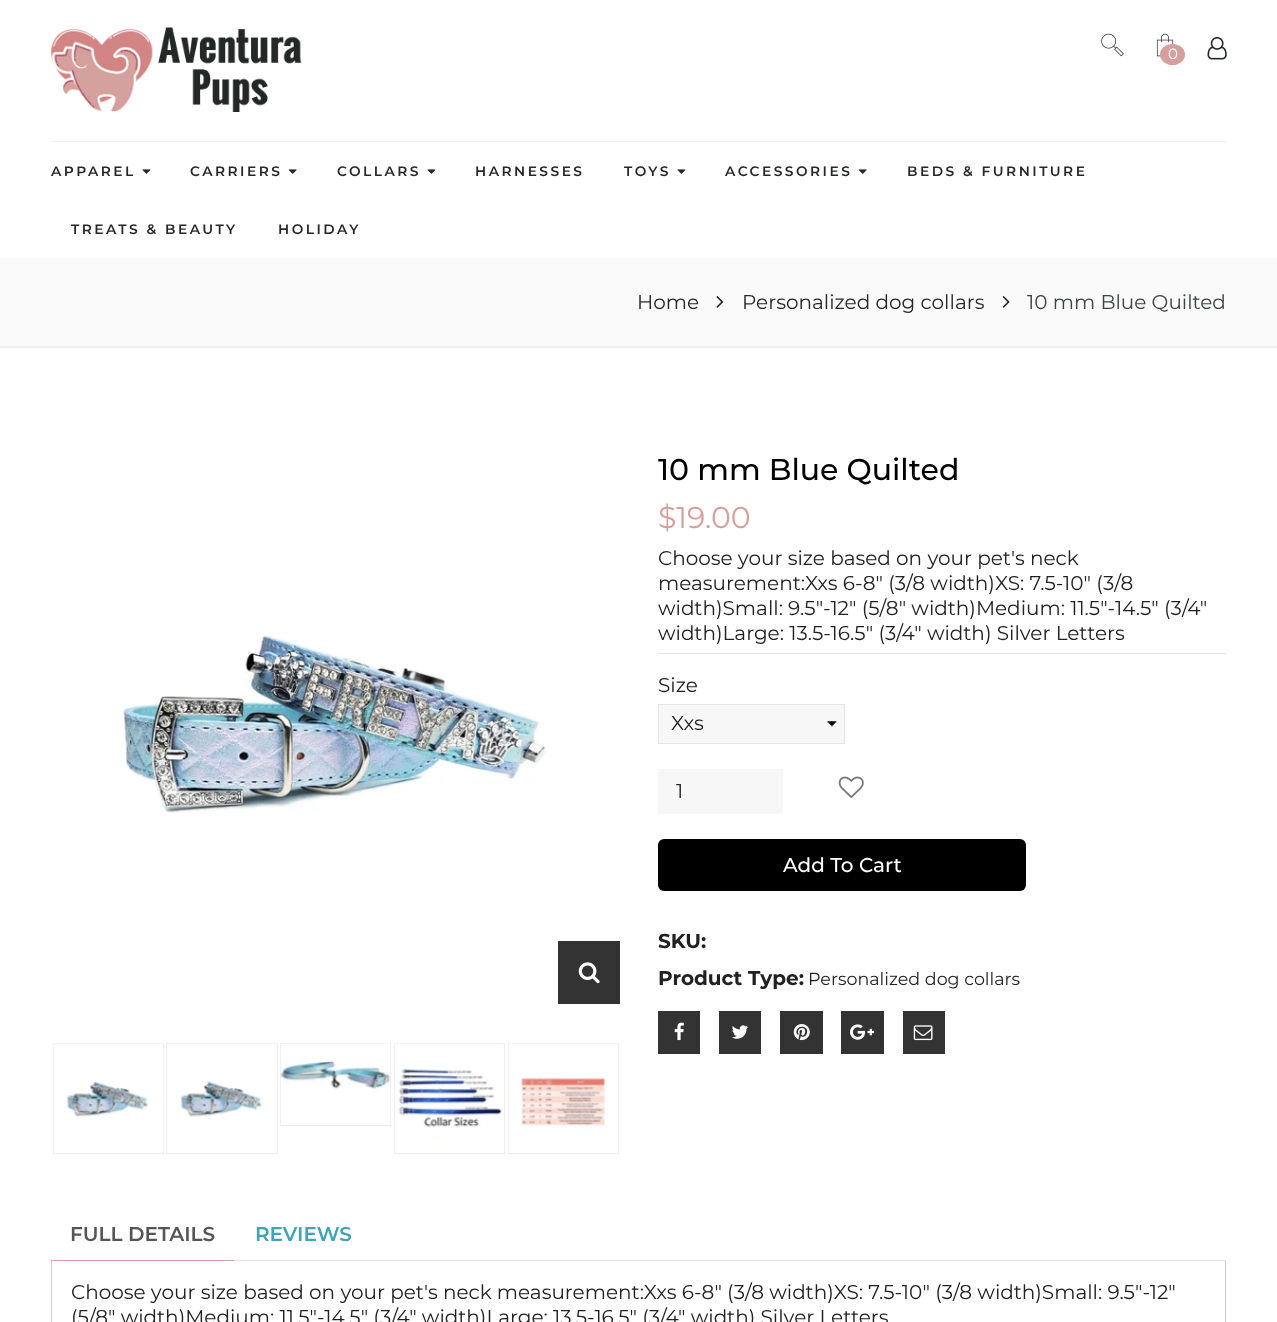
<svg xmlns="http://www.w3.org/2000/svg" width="1277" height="1322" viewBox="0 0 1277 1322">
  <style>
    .t1 { font: 15px Montserrat; fill: #fff; }
    .t2 { font: 600 13.75px Montserrat; letter-spacing: 2.5px; fill: #232927; }
    .t3 { font: 20px Montserrat; fill: #232927; }
    .t4 { font: 20px Montserrat; fill: #3a4541; }
    .t5 { font: 500 30px Montserrat; fill: #000; }
    .t6 { font: 30px Montserrat; fill: #d59f9d; }
    .t7 { font: 20px Montserrat; fill: #212121; }
    .t8 { font: 500 20px Montserrat; fill: #fff; }
    .t9 { font: bold 20px Montserrat; fill: #212121; }
    .t10 { font: 17.5px Montserrat; fill: #212121; }
    .t11 { font: 600 20px Montserrat; fill: #555; }
    .t12 { font: 600 20px Montserrat; fill: #3fa3ba; }
  </style>
  <defs>
    <clipPath id="clip1"><rect x="0" y="258" width="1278" height="90"/></clipPath>
  </defs>
  <rect width="100%" height="100%" fill="#fff"/>
  <rect x="51" y="141" width="1175" height="1" fill="#f1f1f1"/>
  <image x="51" y="27" width="251" height="85" href="images/1.png"/>
  <image x="1101" y="33" width="23" height="24" href="images/2.png"/>
  <image x="1156" y="33" width="18" height="24" href="images/3.png"/>
  <ellipse cx="1172.5" cy="54.5" rx="12.5" ry="10.5" fill="#d59f9d"/>
  <text x="1168" y="59" class="t1">0</text>
  <image x="1207" y="37" width="20" height="23" href="images/4.png"/>
  <text x="51" y="176" class="t2">APPAREL</text>
  <image x="142" y="169" width="9" height="5" href="images/5.png"/>
  <text x="190" y="176" class="t2">CARRIERS</text>
  <image x="288" y="169" width="9" height="5" href="images/6.png"/>
  <text x="337" y="176" class="t2">COLLARS</text>
  <image x="427" y="169" width="9" height="5" href="images/5.png"/>
  <text x="475" y="176" class="t2">HARNESSES</text>
  <text x="624" y="176" class="t2">TOYS</text>
  <image x="677" y="169" width="9" height="5" href="images/5.png"/>
  <text x="725" y="176" class="t2">ACCESSORIES</text>
  <image x="858" y="169" width="9" height="5" href="images/6.png"/>
  <text x="907" y="176" class="t2">BEDS &amp; FURNITURE</text>
  <text x="71" y="234" class="t2">TREATS &amp; BEAUTY</text>
  <text x="278" y="234" class="t2">HOLIDAY</text>
  <rect x="0" y="258" width="1277" height="88" fill="#fafafa"/>
  <g clip-path="url(#clip1)">
    <path d="M-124 134H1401V471H-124ZM0 254H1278C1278 254 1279 254 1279 255V345C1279 346 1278 346 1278 346H0C-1 346-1 346-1 345V255C-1 254-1 254 0 254Z" fill="#f0f0f0" fill-rule="evenodd"/>
  </g>
  <text x="637" y="309" class="t3">Home</text>
  <image x="716" y="296" width="8" height="12" href="images/7.png"/>
  <text x="742" y="309" class="t3">Personalized dog collars</text>
  <image x="1002" y="296" width="8" height="12" href="images/8.png"/>
  <text x="1027" y="309" class="t4">10 mm Blue Quilted</text>
  <image x="123" y="634" width="424" height="180" href="images/9.png"/>
  <rect x="558" y="941" width="62" height="63" fill="#333"/>
  <image x="578" y="962" width="22" height="22" href="images/10.png"/>
  <rect x="53.5" y="1043.5" width="110" height="110" fill="none" stroke="#eee"/>
  <image x="53" y="1043" width="109" height="109" href="images/11.png"/>
  <rect x="166.5" y="1043.5" width="111" height="110" fill="none" stroke="#eee"/>
  <image x="168" y="1043" width="108" height="74" href="images/12.png"/>
  <rect x="280.5" y="1043.5" width="110" height="82" fill="none" stroke="#eee"/>
  <image x="280" y="1043" width="111" height="81" href="images/13.png"/>
  <rect x="394.5" y="1043.5" width="110" height="110" fill="none" stroke="#eee"/>
  <image x="394" y="1043" width="109" height="109" href="images/14.png"/>
  <rect x="508.5" y="1043.5" width="110" height="110" fill="none" stroke="#eee"/>
  <image x="508" y="1043" width="109" height="109" href="images/15.png"/>
  <text x="658" y="480" class="t5">10 mm Blue Quilted</text>
  <text x="658" y="528" class="t6">$19.00</text>
  <rect x="658" y="653" width="568" height="1" fill="#e5e5e5"/>
  <text x="658" y="565" class="t7">Choose your size based on your pet's neck</text>
  <text x="658" y="590" class="t7">measurement:Xxs 6-8" (3/8 width)XS: 7.5-10" (3/8</text>
  <text x="658" y="615" class="t7">width)Small: 9.5"-12" (5/8" width)Medium: 11.5"-14.5" (3/4"</text>
  <text x="658" y="640" class="t7">width)Large: 13.5-16.5" (3/4" width) Silver Letters</text>
  <text x="658" y="692" class="t7">Size</text>
  <rect x="659" y="705" width="185" height="38" fill="#f7f7f7"/>
  <image x="827" y="721" width="10" height="6" href="images/16.png"/>
  <rect x="658.5" y="704.5" width="186" height="39" fill="none" stroke="#e5e5e5"/>
  <text x="671" y="730" class="t7">Xxs</text>
  <rect x="658" y="769" width="125" height="45" fill="#f7f7f7"/>
  <text x="676" y="798" class="t3">1</text>
  <image x="838" y="776" width="26" height="22" href="images/17.png"/>
  <rect x="658" y="839" width="368" height="52" rx="6" fill="#000"/>
  <text x="783" y="872" class="t8">Add To Cart</text>
  <text x="658" y="948" class="t9">SKU:</text>
  <text x="658" y="985" class="t9">Product Type:</text>
  <text x="808" y="985" class="t10">Personalized dog collars</text>
  <rect x="658" y="1011" width="42" height="43" fill="#333"/>
  <image x="674" y="1022" width="10" height="19" href="images/18.png"/>
  <rect x="719" y="1011" width="42" height="43" fill="#333"/>
  <image x="732" y="1025" width="16" height="14" href="images/19.png"/>
  <rect x="780" y="1011" width="43" height="43" fill="#333"/>
  <image x="793" y="1024" width="17" height="17" href="images/20.png"/>
  <rect x="841" y="1011" width="43" height="43" fill="#333"/>
  <image x="850" y="1024" width="25" height="16" href="images/21.png"/>
  <rect x="903" y="1011" width="42" height="43" fill="#333"/>
  <image x="913" y="1025" width="20" height="16" href="images/22.png"/>
  <rect x="51.5" y="1260.5" width="1174" height="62" fill="none" stroke="#ccc"/>
  <rect x="51" y="1260" width="183" height="1" fill="#d59f9d"/>
  <text x="70" y="1241" class="t11">FULL DETAILS</text>
  <text x="255" y="1241" class="t12">REVIEWS</text>
  <rect x="234" y="1260" width="992" height="1" fill="#e0e0e0"/>
  <text x="71" y="1299" class="t7">Choose your size based on your pet's neck measurement:Xxs 6-8" (3/8 width)XS: 7.5-10" (3/8 width)Small: 9.5"-12"</text>
  <text x="71" y="1324" class="t7">(5/8" width)Medium: 11.5"-14.5" (3/4" width)Large: 13.5-16.5" (3/4" width) Silver Letters</text>
</svg>
